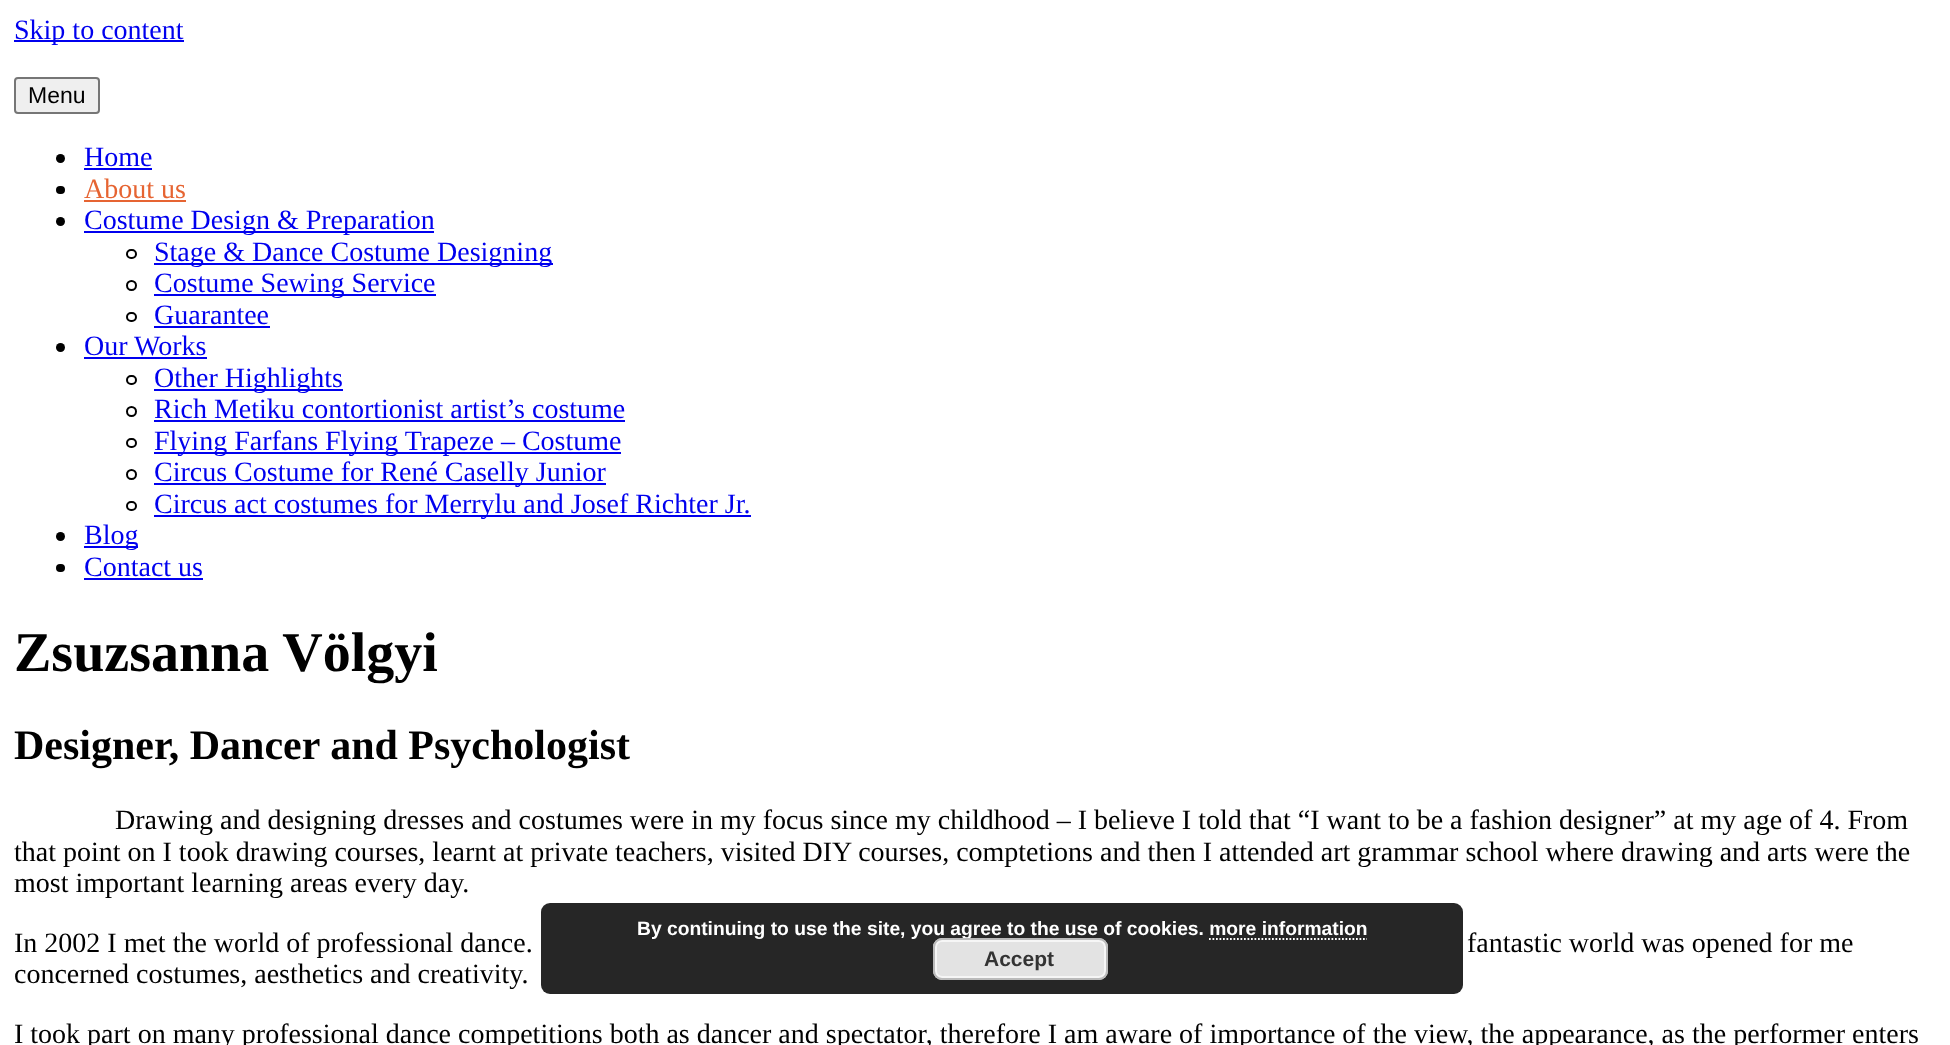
<svg xmlns="http://www.w3.org/2000/svg" width="1950" height="1045" viewBox="0 0 1950 1045">
  <style>
    .t1 { font: 28px Liberation Serif; fill: #00e; }
    .t2 { font: 23px Liberation Sans; fill: #000; }
    .t3 { font: 28px Liberation Serif; fill: #e66432; }
    .t4 { font: bold 56px Liberation Serif; fill: #000; }
    .t5 { font: bold 42px Liberation Serif; fill: #000; }
    .t6 { font: 28px Liberation Serif; fill: #000; }
    .t7 { font: bold 19.25px Liberation Sans; fill: #fff; }
    .t8 { font: bold 21px Liberation Sans; fill: #333; }
  </style>
  <rect width="100%" height="100%" fill="#fff"/>
  <rect x="14" y="40" width="170" height="2" fill="#00e"/>
  <text x="14" y="39" class="t1">Skip to content</text>
  <rect x="15" y="78" width="84" height="35" rx="3" fill="#efefef" stroke="#767676" stroke-width="2"/>
  <text x="28" y="103" class="t2">Menu</text>
  <circle cx="60.5" cy="158.5" r="4.5" fill="#000"/>
  <text x="84" y="166" class="t1">Home</text>
  <rect x="84" y="168" width="68" height="2" fill="#00e"/>
  <rect x="56" y="186" width="9" height="8" rx="4" fill="#000"/>
  <text x="84" y="198" class="t3">About us</text>
  <rect x="84" y="200" width="102" height="2" fill="#e66432"/>
  <circle cx="60.5" cy="221.5" r="4.5" fill="#000"/>
  <rect x="84" y="231" width="350" height="2" fill="#00e"/>
  <text x="84" y="229" class="t1">Costume Design &amp; Preparation</text>
  <rect x="127" y="250" width="9" height="8" rx="4" fill="none" stroke="#000" stroke-width="2"/>
  <rect x="154" y="263" width="399" height="2" fill="#00e"/>
  <text x="154" y="261" class="t1">Stage &amp; Dance Costume Designing</text>
  <circle cx="131.5" cy="285.5" r="4.5" fill="none" stroke="#000" stroke-width="2"/>
  <rect x="154" y="294" width="282" height="2" fill="#00e"/>
  <text x="154" y="292" class="t1">Costume Sewing Service</text>
  <rect x="127" y="313" width="9" height="8" rx="4" fill="none" stroke="#000" stroke-width="2"/>
  <text x="154" y="324" class="t1">Guarantee</text>
  <rect x="154" y="326" width="116" height="2" fill="#00e"/>
  <circle cx="60.5" cy="347.5" r="4.5" fill="#000"/>
  <text x="84" y="355" class="t1">Our Works</text>
  <rect x="84" y="357" width="123" height="2" fill="#00e"/>
  <rect x="127" y="376" width="9" height="8" rx="4" fill="none" stroke="#000" stroke-width="2"/>
  <rect x="154" y="389" width="189" height="2" fill="#00e"/>
  <text x="154" y="387" class="t1">Other Highlights</text>
  <circle cx="131.5" cy="411.5" r="4.5" fill="none" stroke="#000" stroke-width="2"/>
  <text x="154" y="418" class="t1">Rich Metiku contortionist artist’s costume</text>
  <rect x="154" y="420" width="471" height="2" fill="#00e"/>
  <rect x="127" y="439" width="9" height="8" rx="4" fill="none" stroke="#000" stroke-width="2"/>
  <rect x="154" y="452" width="467" height="2" fill="#00e"/>
  <text x="154" y="450" class="t1">Flying Farfans Flying Trapeze – Costume</text>
  <circle cx="131.5" cy="474.5" r="4.5" fill="none" stroke="#000" stroke-width="2"/>
  <rect x="154" y="483" width="452" height="2" fill="#00e"/>
  <text x="154" y="481" class="t1">Circus Costume for René Caselly Junior</text>
  <rect x="127" y="502" width="9" height="8" rx="4" fill="none" stroke="#000" stroke-width="2"/>
  <rect x="154" y="515" width="597" height="2" fill="#00e"/>
  <text x="154" y="513" class="t1">Circus act costumes for Merrylu and Josef Richter Jr.</text>
  <circle cx="60.5" cy="536.5" r="4.5" fill="#000"/>
  <rect x="84" y="546" width="54" height="2" fill="#00e"/>
  <text x="84" y="544" class="t1">Blog</text>
  <rect x="56" y="564" width="9" height="8" rx="4" fill="#000"/>
  <text x="84" y="576" class="t1">Contact us</text>
  <rect x="84" y="578" width="119" height="2" fill="#00e"/>
  <text x="14" y="671" class="t4">Zsuzsanna Völgyi</text>
  <text x="14" y="759" class="t5">Designer, Dancer and Psychologist</text>
  <text x="115" y="829" class="t6">Drawing and designing dresses and costumes were in my focus since my childhood – I believe I told that “I want to be a fashion designer” at my age of 4. From</text>
  <text x="14" y="861" class="t6">that point on I took drawing courses, learnt at private teachers, visited DIY courses, comptetions and then I attended art grammar school where drawing and arts were the</text>
  <text x="14" y="892" class="t6">most important learning areas every day.</text>
  <text x="14" y="952" class="t6">In 2002 I met the world of professional dance.</text>
  <text x="1467" y="952" class="t6">fantastic world was opened for me</text>
  <text x="14" y="983" class="t6">concerned costumes, aesthetics and creativity.</text>
  <text x="14" y="1043" class="t6">I took part on many professional dance competitions both as dancer and spectator, therefore I am aware of importance of the view, the appearance, as the performer enters</text>
  <rect x="541" y="903" width="922" height="91" rx="9" fill="#000000d9"/>
  <text x="637" y="935" class="t7">By continuing to use the site, you agree to the use of cookies. more information</text>
  <path d="M1209 939H1367" fill="none" stroke="#fff" stroke-width="1.8" stroke-dasharray="1.75 1.75"/>
  <rect x="933" y="938" width="175" height="42" rx="9" fill="#e3e3e3"/>
  <rect x="936" y="941" width="169" height="36" rx="6" fill="none" stroke="#f6f6f6" stroke-width="2"/>
  <rect x="934" y="939" width="173" height="40" rx="8" fill="none" stroke="#bbb" stroke-width="2"/>
  <text x="984" y="966" class="t8">Accept</text>
</svg>
